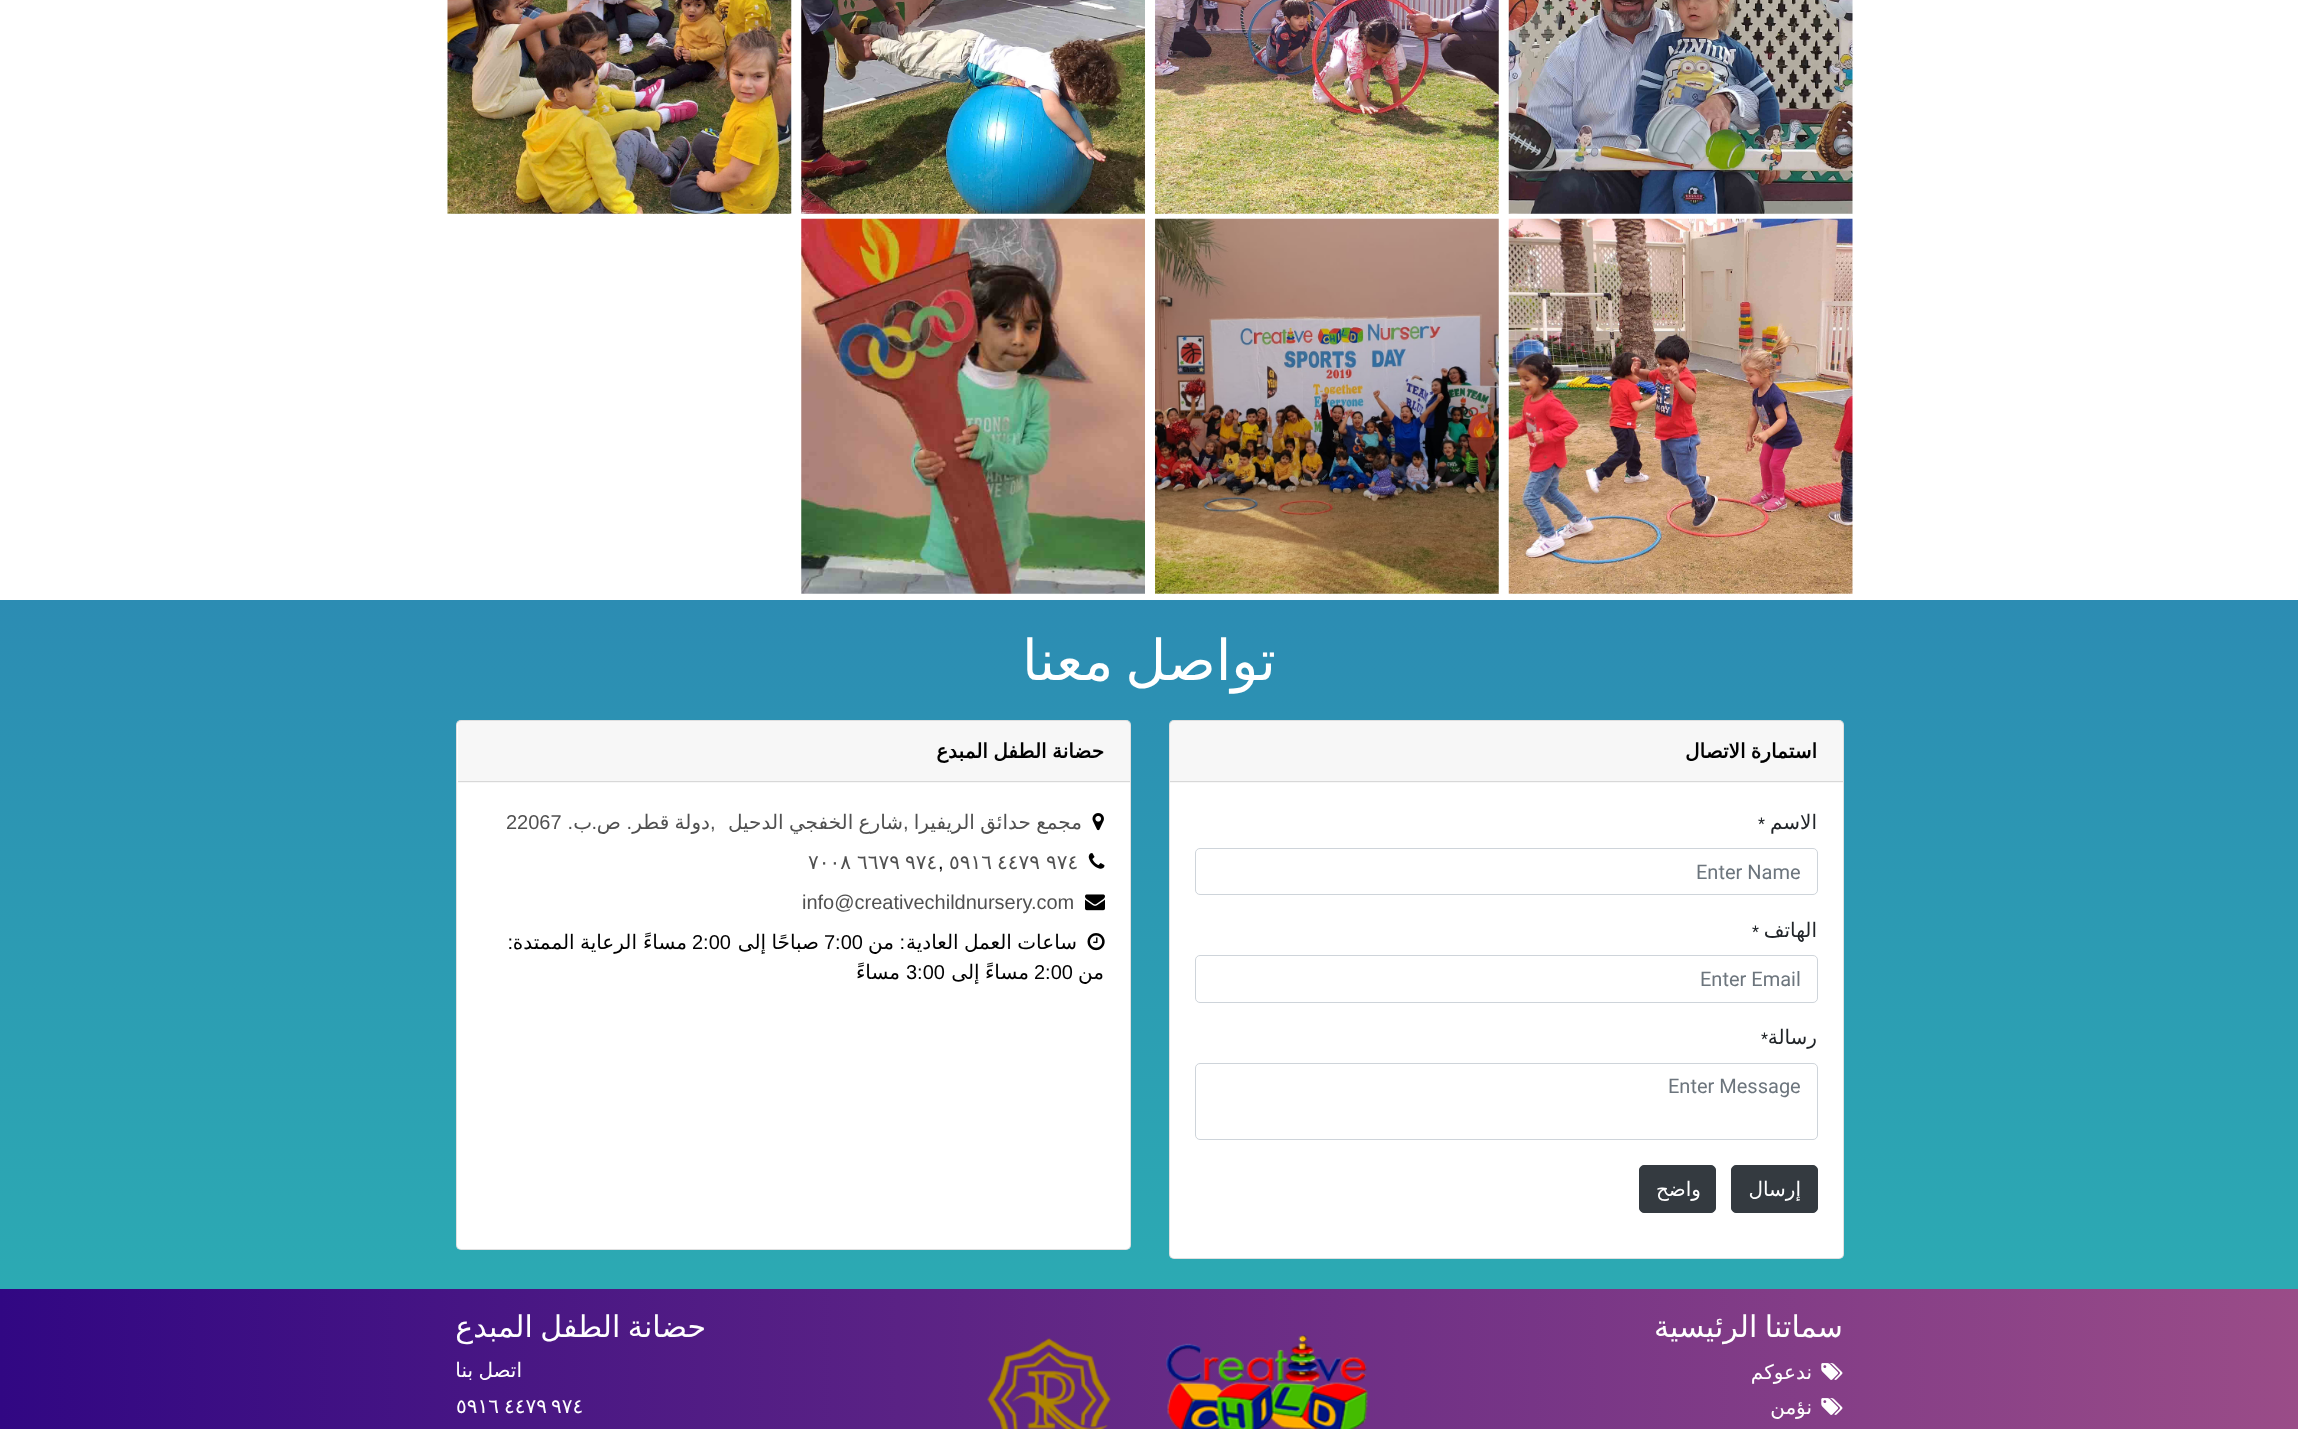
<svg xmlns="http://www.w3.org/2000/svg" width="2298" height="1429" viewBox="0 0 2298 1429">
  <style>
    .t1 { font: 56.25px DejaVu Sans; direction: rtl; fill: #fff; }
    .t2 { font: bold 20px DejaVu Sans; direction: rtl; fill: #000; }
    .t3 { font: 20px DejaVu Sans; direction: rtl; fill: #212529; }
    .t4 { font: 16px Roboto; fill: #212529; }
    .t5 { font: 20px Roboto; fill: #6c757d; }
    .t6 { font: 20px DejaVu Sans; direction: rtl; fill: #fff; }
    .t7 { font: 20px DejaVu Sans; direction: rtl; fill: #505050; }
    .t8 { font: 20px Liberation Sans; fill: #505050; }
    .t9 { font: 20px Liberation Sans; direction: rtl; fill: #505050; }
    .t10 { font: 20px DejaVu Sans; fill: #505050; }
    .t11 { font: 20px Liberation Sans; fill: #000; }
    .t12 { font: 20px DejaVu Sans; direction: rtl; fill: #000; }
    .t13 { font: 20px Liberation Sans; direction: rtl; fill: #000; }
    .t14 { font: 30px DejaVu Sans; direction: rtl; fill: #fff; }
    .t15 { font: 20px DejaVu Sans; fill: #fff; }
  </style>
  <defs>
    <linearGradient id="g1" gradientUnits="userSpaceOnUse" x1="1149" y1="1289" x2="1149" y2="600"><stop offset="0" stop-color="#2caab3"/><stop offset="1" stop-color="#2c8cb3"/></linearGradient>
    <linearGradient id="g2" gradientUnits="userSpaceOnUse" x1="0" y1="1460" x2="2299" y2="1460"><stop offset="0" stop-color="#310783"/><stop offset="1" stop-color="#9a4c88"/></linearGradient>
  </defs>
  <rect width="100%" height="100%" fill="#fff"/>
  <image x="1508" y="0" width="345" height="214" href="images/1.png"/>
  <image x="1155" y="0" width="344" height="214" href="images/2.png"/>
  <image x="801" y="0" width="344" height="214" href="images/3.png"/>
  <image x="447" y="0" width="345" height="214" href="images/4.png"/>
  <image x="1508" y="218" width="345" height="376" href="images/5.png"/>
  <image x="1155" y="218" width="344" height="376" href="images/6.png"/>
  <image x="801" y="218" width="344" height="376" href="images/7.png"/>
  <rect x="0" y="600" width="2298" height="689" fill="url(#g1)"/>
  <text x="1276" y="680" word-spacing="-6" class="t1">تواصل معنا</text>
  <rect x="1169" y="720" width="675" height="539" rx="5" fill="#fff"/>
  <rect x="1169.5" y="720.5" width="674" height="538" rx="4.5" fill="none" stroke="#0000001f"/>
  <rect x="1170" y="721" width="673" height="62" fill="#00000008"/>
  <rect x="1170" y="781" width="673" height="1" fill="#d8d8d8"/>
  <text x="1817" y="758" word-spacing="-1" class="t2">استمارة الاتصال</text>
  <text x="1817" y="829" class="t3">الاسم</text>
  <text x="1758" y="829" class="t4">*</text>
  <rect x="1195.5" y="848.5" width="622" height="46" rx="4.5" fill="none" stroke="#ced4da"/>
  <text x="1696" y="879" class="t5">Enter Name</text>
  <text x="1817" y="937" class="t3">الهاتف</text>
  <text x="1752" y="937" class="t4">*</text>
  <rect x="1195.5" y="955.5" width="622" height="47" rx="4.5" fill="none" stroke="#ced4da"/>
  <text x="1700" y="986" class="t5">Enter Email</text>
  <text x="1817" y="1044" class="t3">رسالة</text>
  <text x="1761" y="1044" class="t4">*</text>
  <rect x="1195.5" y="1063.5" width="622" height="76" rx="4.5" fill="none" stroke="#ced4da"/>
  <text x="1668" y="1093" class="t5">Enter Message</text>
  <rect x="1731.5" y="1165.5" width="86" height="47" rx="4.5" fill="#343a40" stroke="#343a40"/>
  <text x="1801" y="1196" class="t6">إرسال</text>
  <rect x="1639.5" y="1165.5" width="76" height="47" rx="4.5" fill="#343a40" stroke="#343a40"/>
  <text x="1701" y="1196" class="t6">واضح</text>
  <rect x="456" y="720" width="675" height="530" rx="5" fill="#fff"/>
  <rect x="456.5" y="720.5" width="674" height="529" rx="4.5" fill="none" stroke="#0000001f"/>
  <rect x="458" y="721" width="672" height="62" fill="#00000008"/>
  <rect x="458" y="781" width="672" height="1" fill="#d8d8d8"/>
  <text x="1104" y="758" word-spacing="-1" class="t2">حضانة الطفل المبدع</text>
  <image x="1092" y="813" width="12" height="18" href="images/8.png"/>
  <text x="1082" y="829" word-spacing="-1" class="t7">مجمع حدائق الريفيرا</text>
  <text x="903" y="829" class="t8">,</text>
  <text x="903" y="829" word-spacing="-1" class="t7">شارع الخفجي الدحيل</text>
  <text x="710" y="829" class="t8">,</text>
  <text x="710" y="829" word-spacing="-1" class="t7">دولة قطر</text>
  <text x="632" y="829" class="t9">.</text>
  <text x="621" y="829" class="t7">ص</text>
  <text x="597" y="829" class="t9">.</text>
  <text x="592" y="829" class="t7">ب</text>
  <text x="573" y="829" class="t9">.</text>
  <text x="506" y="829" class="t8">22067</text>
  <image x="1088" y="853" width="17" height="16" href="images/9.png"/>
  <text x="1046" y="869" class="t10">٩٧٤</text>
  <text x="997" y="869" class="t10">٤٤٧٩</text>
  <text x="949" y="869" class="t10">٥٩١٦</text>
  <text x="938" y="869" class="t11">,</text>
  <text x="905" y="869" class="t10">٩٧٤</text>
  <text x="857" y="869" class="t10">٦٦٧٩</text>
  <text x="808" y="869" class="t10">٧٠٠٨</text>
  <image x="1085" y="894" width="20" height="17" href="images/10.png"/>
  <text x="802" y="909" class="t8">info@creativechildnursery.com</text>
  <image x="1087" y="933" width="18" height="18" href="images/11.png"/>
  <text x="1077" y="949" word-spacing="-1" class="t12">ساعات العمل العادية</text>
  <text x="905" y="949" class="t13">:</text>
  <text x="894" y="949" class="t12">من</text>
  <text x="824" y="949" class="t11">7:00</text>
  <text x="819" y="949" word-spacing="-1" class="t12">صباحًا إلى</text>
  <text x="692" y="949" class="t11">2:00</text>
  <text x="687" y="949" class="t12">مساءً</text>
  <text x="637" y="949" word-spacing="-1" class="t12">الرعاية الممتدة</text>
  <text x="513" y="949" class="t13">:</text>
  <text x="1104" y="979" class="t12">من</text>
  <text x="1034" y="979" class="t11">2:00</text>
  <text x="1029" y="979" word-spacing="-1" class="t12">مساءً إلى</text>
  <text x="906" y="979" class="t11">3:00</text>
  <text x="900" y="979" class="t12">مساءً</text>
  <rect x="0" y="1289" width="2298" height="140" fill="url(#g2)"/>
  <text x="1843" y="1337" word-spacing="-2" class="t14">سماتنا الرئيسية</text>
  <image x="1821" y="1363" width="22" height="17" href="images/12.png"/>
  <text x="1812" y="1379" class="t6">ندعوكم</text>
  <image x="1821" y="1398" width="22" height="17" href="images/12.png"/>
  <text x="1812" y="1414" class="t6">نؤمن</text>
  <image x="1166" y="1335" width="202" height="94" href="images/13.png"/>
  <image x="987" y="1338" width="125" height="91" href="images/14.png"/>
  <text x="706" y="1337" word-spacing="-2" class="t14">حضانة الطفل المبدع</text>
  <text x="522" y="1377" word-spacing="-1" class="t6">اتصل بنا</text>
  <text x="551" y="1413" class="t15">٩٧٤</text>
  <text x="504" y="1413" class="t15">٤٤٧٩</text>
  <text x="456" y="1413" class="t15">٥٩١٦</text>
</svg>
